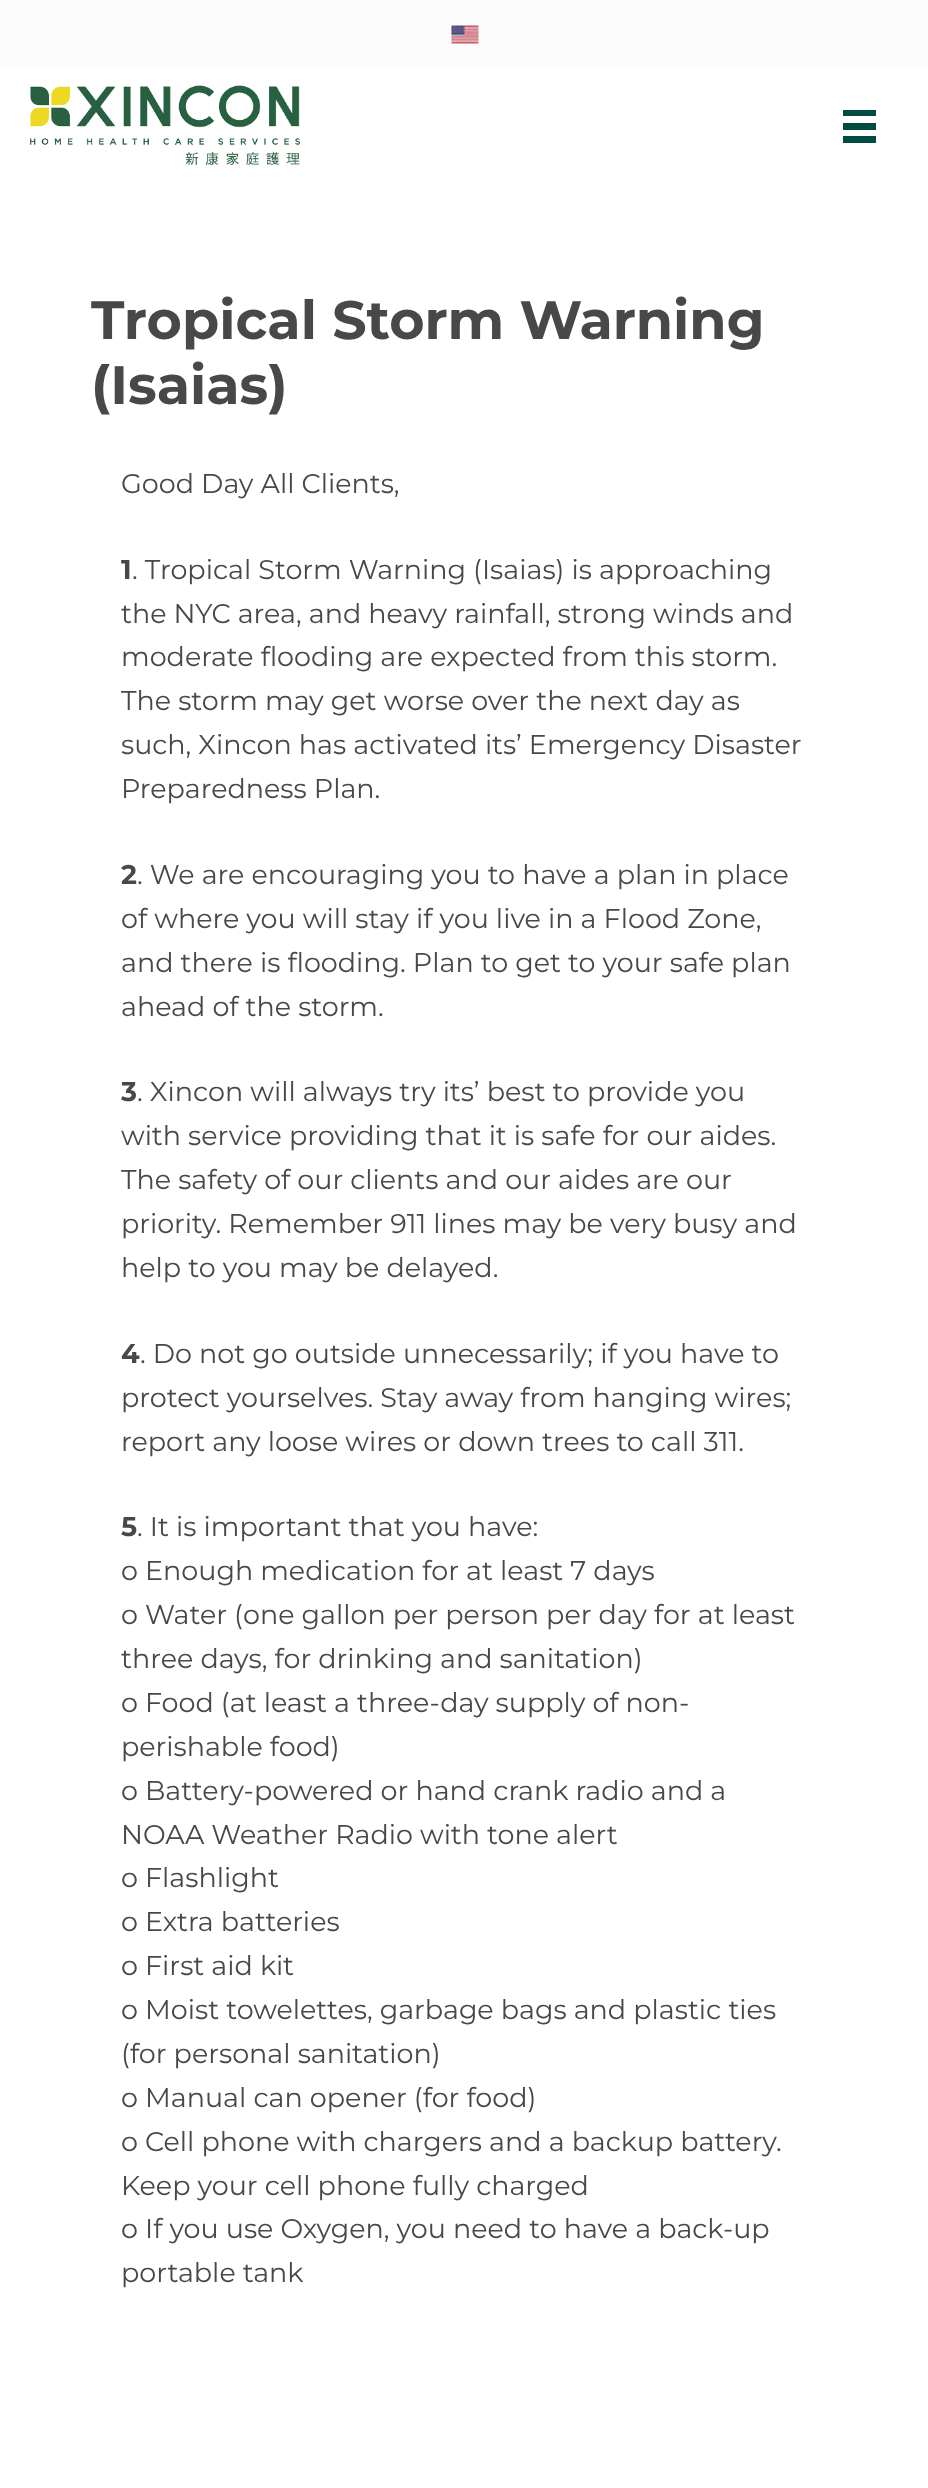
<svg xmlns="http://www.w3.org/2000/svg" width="928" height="2488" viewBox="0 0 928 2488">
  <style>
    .t1 { font: bold 54px Montserrat; fill: #484848; }
    .t2 { font: 27px Montserrat; fill: #484848; }
    .t3 { font: bold 27px Montserrat; fill: #484848; }
  </style>
  <rect width="100%" height="100%" fill="#fff"/>
  <rect x="0" y="0" width="928" height="68" fill="#fcfcfc"/>
  <image x="451" y="25" width="28" height="19" href="images/1.png"/>
  <image x="30" y="85" width="270" height="80" href="images/2.png"/>
  <rect x="843" y="110" width="33" height="6" fill="#004c43"/>
  <rect x="843" y="123" width="33" height="7" fill="#004c43"/>
  <rect x="843" y="136" width="33" height="7" fill="#004c43"/>
  <text x="91" y="339" class="t1">Tropical Storm Warning</text>
  <text x="91" y="404" class="t1">(Isaias)</text>
  <text x="121" y="493" class="t2">Good Day All Clients,</text>
  <text x="121" y="579" class="t3">1</text>
  <text x="132" y="579" class="t2">. Tropical Storm Warning (Isaias) is approaching</text>
  <text x="121" y="623" class="t2">the NYC area, and heavy rainfall, strong winds and</text>
  <text x="121" y="666" class="t2">moderate flooding are expected from this storm.</text>
  <text x="121" y="710" class="t2">The storm may get worse over the next day as</text>
  <text x="121" y="754" class="t2">such, Xincon has activated its’ Emergency Disaster</text>
  <text x="121" y="798" class="t2">Preparedness Plan.</text>
  <text x="121" y="884" class="t3">2</text>
  <text x="137" y="884" class="t2">. We are encouraging you to have a plan in place</text>
  <text x="121" y="928" class="t2">of where you will stay if you live in a Flood Zone,</text>
  <text x="121" y="972" class="t2">and there is flooding. Plan to get to your safe plan</text>
  <text x="121" y="1016" class="t2">ahead of the storm.</text>
  <text x="121" y="1101" class="t3">3</text>
  <text x="137" y="1101" class="t2">. Xincon will always try its’ best to provide you</text>
  <text x="121" y="1145" class="t2">with service providing that it is safe for our aides.</text>
  <text x="121" y="1189" class="t2">The safety of our clients and our aides are our</text>
  <text x="121" y="1233" class="t2">priority. Remember 911 lines may be very busy and</text>
  <text x="121" y="1277" class="t2">help to you may be delayed.</text>
  <text x="121" y="1363" class="t3">4</text>
  <text x="140" y="1363" class="t2">. Do not go outside unnecessarily; if you have to</text>
  <text x="121" y="1407" class="t2">protect yourselves. Stay away from hanging wires;</text>
  <text x="121" y="1451" class="t2">report any loose wires or down trees to call 311.</text>
  <text x="121" y="1536" class="t3">5</text>
  <text x="137" y="1536" class="t2">. It is important that you have:</text>
  <text x="121" y="1580" class="t2">o Enough medication for at least 7 days</text>
  <text x="121" y="1624" class="t2">o Water (one gallon per person per day for at least</text>
  <text x="121" y="1668" class="t2">three days, for drinking and sanitation)</text>
  <text x="121" y="1712" class="t2">o Food (at least a three-day supply of non-</text>
  <text x="121" y="1756" class="t2">perishable food)</text>
  <text x="121" y="1800" class="t2">o Battery-powered or hand crank radio and a</text>
  <text x="121" y="1844" class="t2">NOAA Weather Radio with tone alert</text>
  <text x="121" y="1887" class="t2">o Flashlight</text>
  <text x="121" y="1931" class="t2">o Extra batteries</text>
  <text x="121" y="1975" class="t2">o First aid kit</text>
  <text x="121" y="2019" class="t2">o Moist towelettes, garbage bags and plastic ties</text>
  <text x="121" y="2063" class="t2">(for personal sanitation)</text>
  <text x="121" y="2107" class="t2">o Manual can opener (for food)</text>
  <text x="121" y="2151" class="t2">o Cell phone with chargers and a backup battery.</text>
  <text x="121" y="2195" class="t2">Keep your cell phone fully charged</text>
  <text x="121" y="2238" class="t2">o If you use Oxygen, you need to have a back-up</text>
  <text x="121" y="2282" class="t2">portable tank</text>
</svg>
